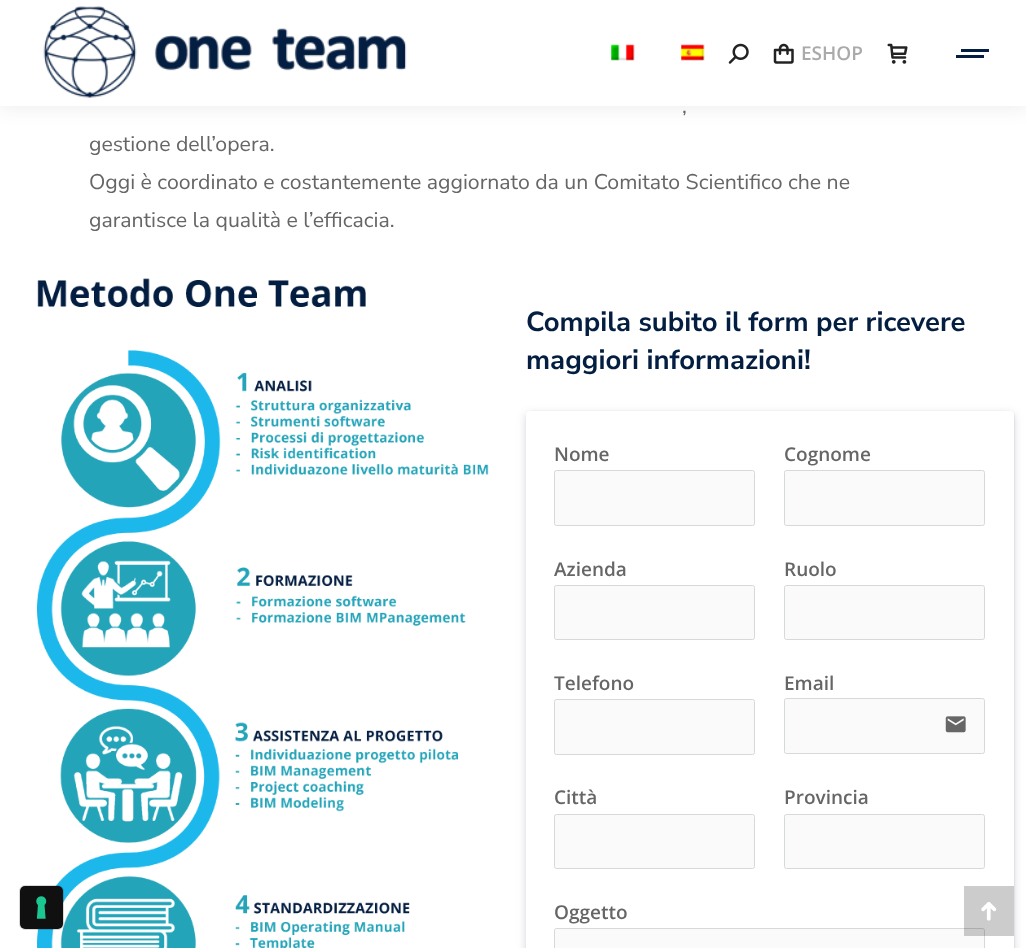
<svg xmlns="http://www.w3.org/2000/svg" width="1026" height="948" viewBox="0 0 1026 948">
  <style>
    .t1 { font: 600 19px Open Sans; fill: #aaa; }
    .t2 { font: 21.25px Nunito Sans; fill: #666; }
    .t3 { font: bold 27.5px Nunito Sans; fill: #041e42; }
    .t4 { font: 600 19px Open Sans; fill: #666; }
  </style>
  <rect width="100%" height="100%" fill="#fff"/>
  <image x="37" y="278" width="452" height="670" href="images/8.png"/>
  <rect x="19.5" y="885.5" width="44" height="44" rx="5.5" fill="none" stroke="#00000026"/>
  <rect x="20" y="886" width="43" height="43" rx="5" fill="#101010"/>
  <image x="36" y="896" width="11" height="23" href="images/1.png"/>
  <rect x="-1" y="-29" width="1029" height="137" fill="#00000012" filter="blur(9.5px)"/>
  <rect x="0" y="0" width="1026" height="106" fill="#fff"/>
  <image x="43" y="6" width="364" height="92" href="images/2.png"/>
  <image x="611" y="44" width="24" height="17" href="images/3.png"/>
  <image x="681" y="44" width="24" height="17" href="images/4.png"/>
  <image x="728" y="43" width="21" height="21" href="images/5.png"/>
  <image x="773" y="43" width="21" height="21" href="images/6.png"/>
  <text x="801" y="60" class="t1">ESHOP</text>
  <image x="887" y="43" width="21" height="21" href="images/7.png"/>
  <rect x="961" y="49" width="28" height="3" fill="#041e42"/>
  <rect x="956" y="55" width="28" height="3" fill="#041e42"/>
  <text x="682" y="113" class="t2">,</text>
  <text x="89" y="151" class="t2">gestione dell’opera.</text>
  <text x="89" y="189" class="t2">Oggi è coordinato e costantemente aggiornato da un Comitato Scientifico che ne</text>
  <text x="89" y="227" class="t2">garantisce la qualità e l’efficacia.</text>
  <text x="526" y="331" class="t3">Compila subito il form per ricevere</text>
  <text x="526" y="369" class="t3">maggiori informazioni!</text>
  <rect x="526" y="414" width="488" height="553" rx="4" fill="#32375a33" filter="blur(5px)"/>
  <rect x="526.3" y="411.3" width="488.4" height="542.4" rx="4.7" fill="none" stroke="#0014281a" stroke-width="0.6"/>
  <rect x="526" y="411" width="488" height="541" rx="4" fill="#fff"/>
  <text x="554" y="461" class="t4">Nome</text>
  <rect x="554.5" y="470.5" width="200" height="55" rx="2" fill="#fafafa" stroke="#d6d8d9"/>
  <text x="784" y="461" class="t4">Cognome</text>
  <rect x="784.5" y="470.5" width="200" height="55" rx="2" fill="#fafafa" stroke="#d6d8d9"/>
  <text x="554" y="576" class="t4">Azienda</text>
  <rect x="554.5" y="585.5" width="200" height="54" rx="2" fill="#fafafa" stroke="#d6d8d9"/>
  <text x="784" y="576" class="t4">Ruolo</text>
  <rect x="784.5" y="585.5" width="200" height="54" rx="2" fill="#fafafa" stroke="#d6d8d9"/>
  <text x="554" y="690" class="t4">Telefono</text>
  <rect x="554.5" y="699.5" width="200" height="55" rx="2" fill="#fafafa" stroke="#d6d8d9"/>
  <text x="784" y="690" class="t4">Email</text>
  <rect x="784.5" y="698.5" width="200" height="55" rx="2" fill="#fafafa" stroke="#d6d8d9"/>
  <image x="945" y="716" width="21" height="17" href="images/9.png"/>
  <text x="554" y="804" class="t4">Città</text>
  <rect x="554.5" y="814.5" width="200" height="54" rx="2" fill="#fafafa" stroke="#d6d8d9"/>
  <text x="784" y="804" class="t4">Provincia</text>
  <rect x="784.5" y="814.5" width="200" height="54" rx="2" fill="#fafafa" stroke="#d6d8d9"/>
  <text x="554" y="919" class="t4">Oggetto</text>
  <rect x="554.5" y="928.5" width="430" height="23" rx="2" fill="#fafafa" stroke="#d6d8d9"/>
  <rect x="964" y="886" width="50" height="50" fill="#00000033"/>
  <image x="981" y="902" width="16" height="19" href="images/10.png"/>
</svg>
